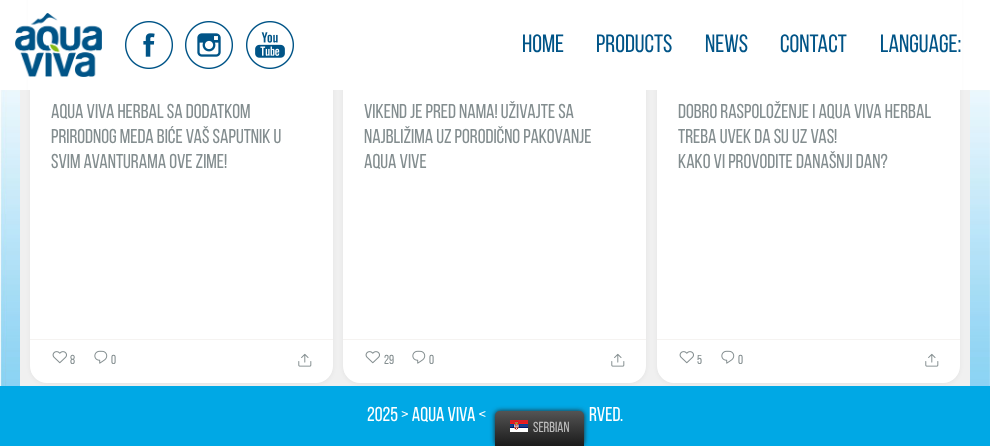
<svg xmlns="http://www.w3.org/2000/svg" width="990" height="446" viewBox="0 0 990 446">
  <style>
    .t1 { font: 25px Bebas Neue; fill: #005487; }
    .t2 { font: 20px Bebas Neue; fill: #838d8f; }
    .t3 { font: 13px Bebas Neue; fill: #838d8f; }
    .t4 { font: 20px Bebas Neue; fill: #fff; }
    .t5 { font: 14.5px Bebas Neue; fill: #bdbdbd; }
  </style>
  <defs>
    <linearGradient id="g1" gradientUnits="userSpaceOnUse" x1="540" y1="446" x2="540" y2="411"><stop offset="0" stop-color="#1b1b1b"/><stop offset="1" stop-color="#545454"/></linearGradient>
  </defs>
  <rect width="100%" height="100%" fill="#fff"/>
  <image x="0" y="90" width="990" height="296" href="images/1.png"/>
  <rect x="20" y="90" width="950" height="296" fill="#f0f0f0"/>
  <rect x="30" y="-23" width="303" height="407" rx="17" fill="#0000000d" filter="blur(2px)"/>
  <rect x="30" y="-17" width="303" height="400" rx="17" fill="#fff"/>
  <rect x="343" y="-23" width="303" height="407" rx="17" fill="#0000000d" filter="blur(2px)"/>
  <rect x="343" y="-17" width="303" height="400" rx="17" fill="#fff"/>
  <rect x="657" y="-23" width="303" height="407" rx="17" fill="#0000000d" filter="blur(2px)"/>
  <rect x="657" y="-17" width="303" height="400" rx="17" fill="#fff"/>
  <rect x="28" y="0" width="934" height="90" fill="#fff"/>
  <image x="15" y="13" width="87" height="64" href="images/2.png"/>
  <image x="125" y="21" width="48" height="48" href="images/3.png"/>
  <image x="185" y="21" width="48" height="48" href="images/4.png"/>
  <image x="246" y="21" width="48" height="48" href="images/5.png"/>
  <text x="522" y="52" class="t1">HOME</text>
  <text x="596" y="52" class="t1">PRODUCTS</text>
  <text x="705" y="52" class="t1">NEWS</text>
  <text x="780" y="52" class="t1">CONTACT</text>
  <text x="880" y="52" class="t1">LANGUAGE:</text>
  <text x="51" y="118" class="t2">Aqua Viva Herbal sa dodatkom</text>
  <text x="51" y="143" class="t2">prirodnog meda biće vaš saputnik u</text>
  <text x="51" y="168" class="t2">svim avanturama ove zime!</text>
  <rect x="30" y="339" width="303" height="1" fill="#f5f3f1"/>
  <image x="52" y="351" width="15" height="13" href="images/6.png"/>
  <text x="70" y="364" class="t3">8</text>
  <image x="94" y="350" width="14" height="14" href="images/7.png"/>
  <text x="111" y="364" class="t3">0</text>
  <image x="298" y="353" width="14" height="14" href="images/8.png"/>
  <text x="364" y="118" class="t2">Vikend je pred nama! Uživajte sa</text>
  <text x="364" y="143" class="t2">najbližima uz porodično pakovanje</text>
  <text x="364" y="168" class="t2">Aqua Vive ️</text>
  <rect x="343" y="339" width="303" height="1" fill="#f5f3f1"/>
  <image x="365" y="351" width="15" height="13" href="images/6.png"/>
  <text x="384" y="364" class="t3">29</text>
  <image x="412" y="350" width="14" height="14" href="images/7.png"/>
  <text x="429" y="364" class="t3">0</text>
  <image x="611" y="353" width="14" height="14" href="images/8.png"/>
  <text x="678" y="118" class="t2">Dobro raspoloženje i Aqua Viva Herbal</text>
  <text x="678" y="143" class="t2">treba uvek da su uz vas!</text>
  <text x="678" y="168" class="t2">Kako vi provodite današnji dan?</text>
  <rect x="657" y="339" width="303" height="1" fill="#f5f3f1"/>
  <image x="679" y="351" width="15" height="13" href="images/6.png"/>
  <text x="697" y="364" class="t3">5</text>
  <image x="721" y="350" width="14" height="14" href="images/7.png"/>
  <text x="738" y="364" class="t3">0</text>
  <image x="925" y="353" width="14" height="14" href="images/8.png"/>
  <rect x="0" y="386" width="990" height="60" fill="#00a8e5"/>
  <text x="367" y="421" class="t4">2025 &gt; AQUA VIVA &lt;</text>
  <text x="589" y="421" class="t4">RVED.</text>
  <rect x="495" y="411" width="89" height="35" rx="5" fill="#212121" filter="blur(2.5px)"/>
  <path d="M500 411H579C582 411 584 413 584 416V446H495V416C495 413 497 411 500 411Z" fill="url(#g1)"/>
  <image x="510" y="420" width="18" height="12" href="images/9.png"/>
  <text x="533" y="432" class="t5">Serbian</text>
</svg>
